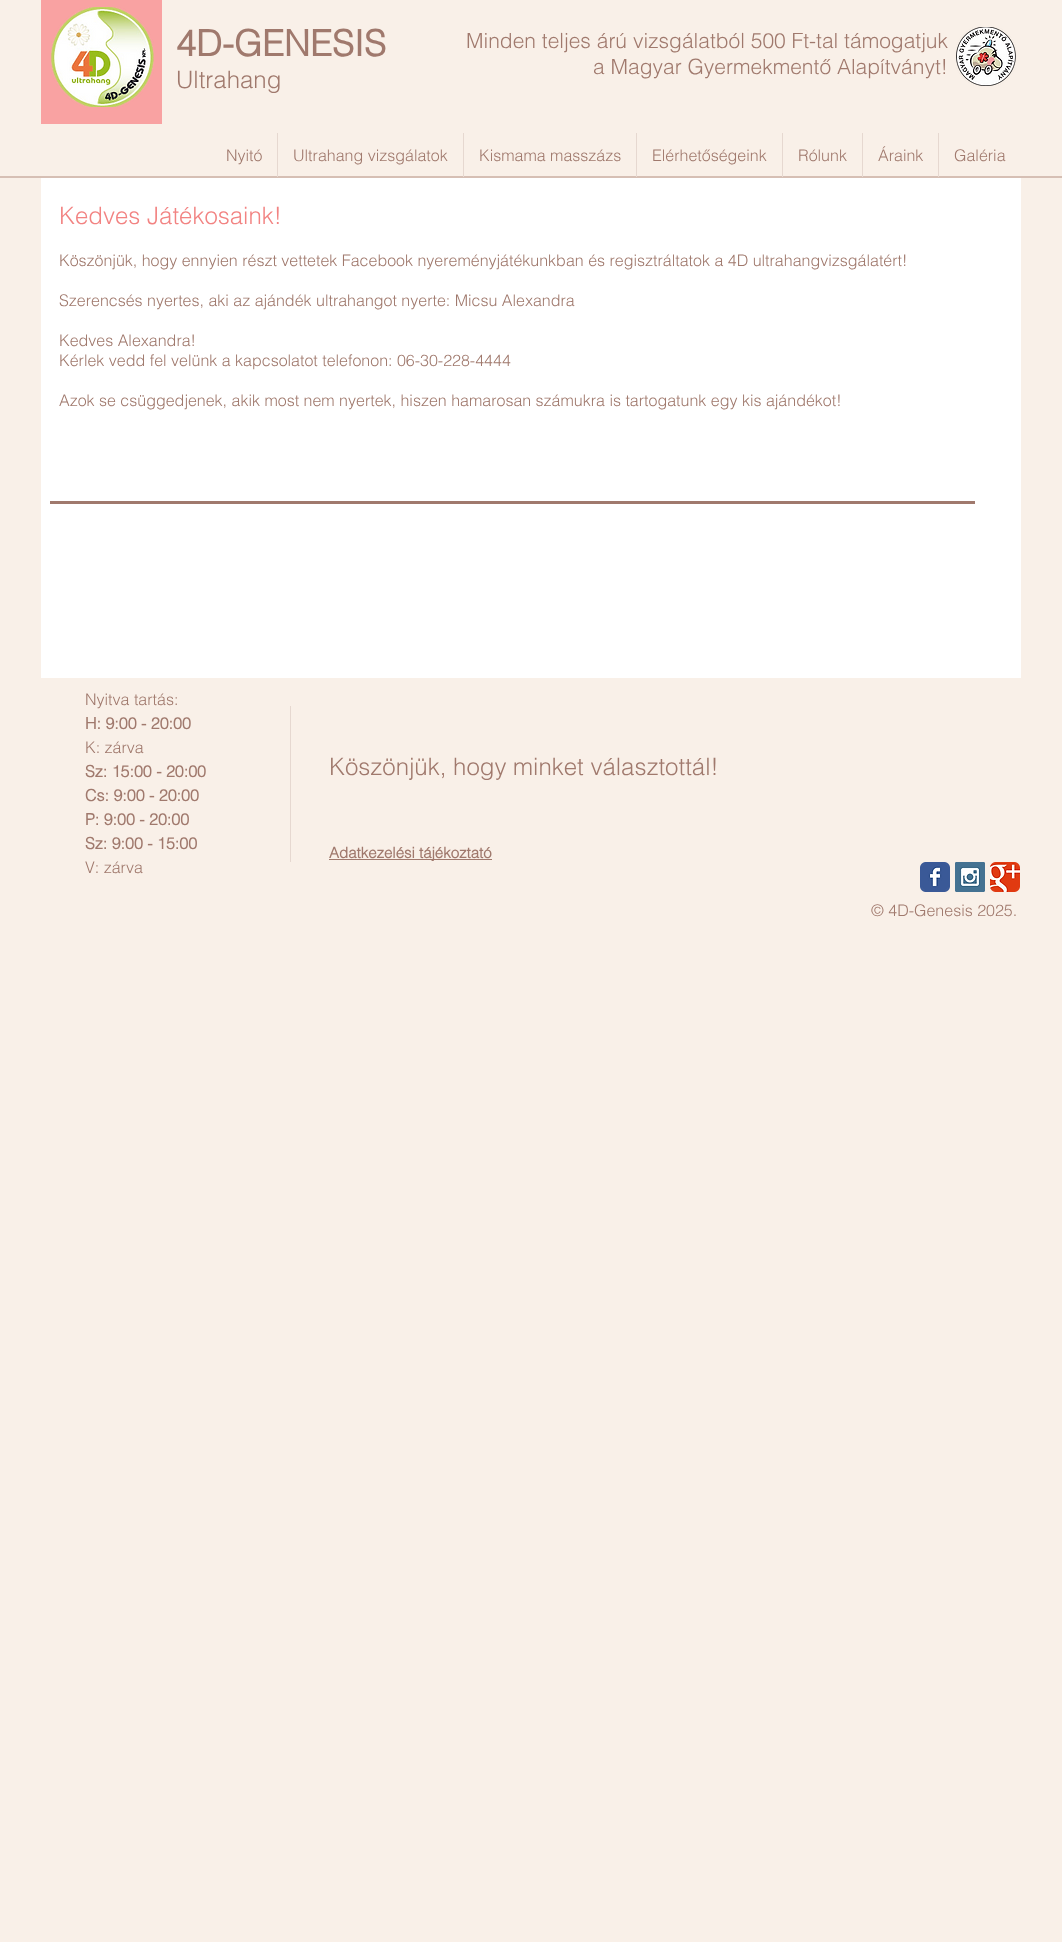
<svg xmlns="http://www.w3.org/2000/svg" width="1062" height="1942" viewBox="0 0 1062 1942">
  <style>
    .t1 { font: bold 36px helvetica; fill: #a0796d; }
    .t2 { font: 300 24px helvetica; fill: #a0796d; }
    .t3 { font: 300 21px helvetica; fill: #a0796d; }
    .t4 { font: 300 16px helvetica; fill: #a0796d; }
    .t5 { font: 300 24px helvetica; fill: #f28382; }
    .t6 { font: bold 16px helvetica; fill: #a0796d; }
    .t7 { font: bold 15px helvetica; fill: #a0796d; }
  </style>
  <rect width="100%" height="100%" fill="#f9f0e8"/>
  <rect x="41" y="0" width="121" height="124" fill="#f9a2a2"/>
  <image x="51" y="7" width="103" height="100" href="images/1.png"/>
  <text x="176" y="56" class="t1">4D-GENESIS</text>
  <text x="176" y="88" class="t2">Ultrahang</text>
  <text x="466" y="48" class="t3">Minden teljes árú vizsgálatból 500 Ft-tal támogatjuk</text>
  <text x="593" y="74" class="t3">a Magyar Gyermekmentő Alapítványt!</text>
  <image x="956" y="27" width="60" height="59" href="images/2.png"/>
  <text x="226" y="161" class="t4">Nyitó</text>
  <rect x="0" y="176" width="1062" height="2" fill="#d6bfb4"/>
  <rect x="277" y="133" width="1" height="44" fill="#e6d8d0"/>
  <text x="293" y="161" class="t4">Ultrahang vizsgálatok</text>
  <rect x="463" y="133" width="1" height="44" fill="#e6d8d0"/>
  <text x="479" y="161" class="t4">Kismama masszázs</text>
  <rect x="636" y="133" width="1" height="44" fill="#e6d8d0"/>
  <text x="652" y="161" class="t4">Elérhetőségeink</text>
  <rect x="782" y="133" width="1" height="44" fill="#e6d8d0"/>
  <text x="798" y="161" class="t4">Rólunk</text>
  <rect x="862" y="133" width="1" height="44" fill="#e6d8d0"/>
  <text x="878" y="161" class="t4">Áraink</text>
  <rect x="938" y="133" width="1" height="44" fill="#e6d8d0"/>
  <text x="954" y="161" class="t4">Galéria</text>
  <rect x="41" y="178" width="980" height="500" fill="#fff"/>
  <text x="59" y="224" class="t5">Kedves Játékosaink!</text>
  <text x="59" y="266" class="t4">Köszönjük, hogy ennyien részt vettetek Facebook nyereményjátékunkban és regisztráltatok a 4D ultrahangvizsgálatért!</text>
  <text x="59" y="306" class="t4">Szerencsés nyertes, aki az ajándék ultrahangot nyerte: Micsu Alexandra</text>
  <text x="59" y="346" class="t4">Kedves Alexandra!</text>
  <text x="59" y="366" class="t4">Kérlek vedd fel velünk a kapcsolatot telefonon: 06-30-228-4444</text>
  <text x="59" y="406" class="t4">Azok se csüggedjenek, akik most nem nyertek, hiszen hamarosan számukra is tartogatunk egy kis ajándékot!</text>
  <rect x="50" y="501" width="925" height="3" fill="#a0796d"/>
  <text x="85" y="705" class="t4">Nyitva tartás:</text>
  <text x="85" y="729" class="t6">H: 9:00 - 20:00</text>
  <text x="85" y="753" class="t4">K: zárva</text>
  <text x="85" y="777" class="t6">Sz: 15:00 - 20:00</text>
  <text x="85" y="801" class="t6">Cs: 9:00 - 20:00</text>
  <text x="85" y="825" class="t6">P: 9:00 - 20:00</text>
  <text x="85" y="849" class="t6">Sz: 9:00 - 15:00</text>
  <text x="85" y="873" class="t4">V: zárva</text>
  <rect x="290" y="706" width="1" height="156" fill="#e6d8d0"/>
  <text x="329" y="775" class="t2">Köszönjük, hogy minket választottál!</text>
  <rect x="329" y="859" width="163" height="1" fill="#a0796d"/>
  <text x="329" y="858" class="t7">Adatkezelési tájékoztató</text>
  <image x="920" y="862" width="30" height="30" href="images/3.png"/>
  <image x="955" y="862" width="30" height="30" href="images/4.png"/>
  <image x="990" y="862" width="30" height="30" href="images/5.png"/>
  <text x="871" y="916" class="t4">© 4D-Genesis 2025.</text>
</svg>
